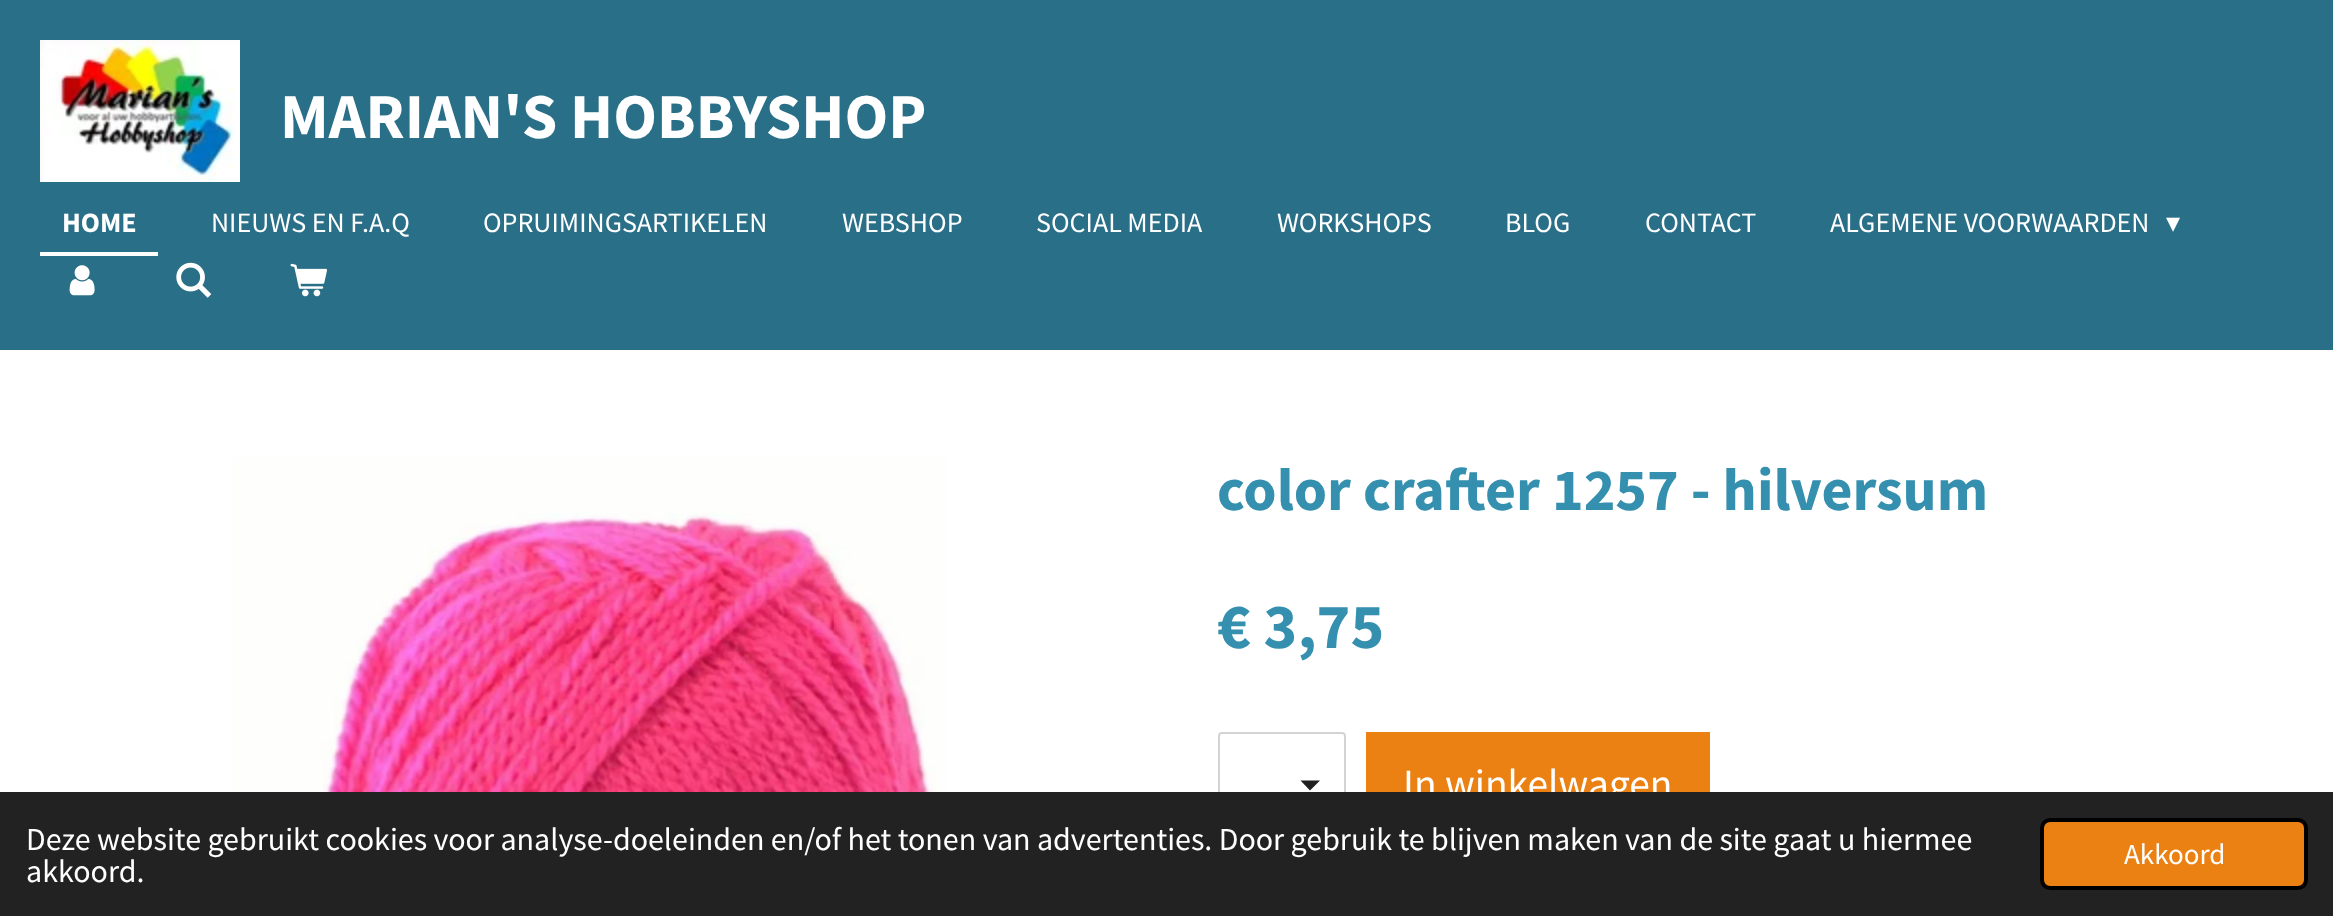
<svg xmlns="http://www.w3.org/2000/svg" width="2333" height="916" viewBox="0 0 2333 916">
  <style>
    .t1 { font: bold 64px Source Sans Pro; fill: #fff; }
    .t2 { font: bold 28px Source Sans Pro; fill: #fff; }
    .t3 { font: 28px Source Sans Pro; fill: #fff; }
    .t4 { font: 28px DejaVu Sans; fill: #fff; }
    .t5 { font: bold 60px Source Sans Pro; fill: #3490ae; }
    .t6 { font: bold 64px Source Sans Pro; fill: #3490ae; }
    .t7 { font: 41.5px Source Sans Pro; fill: #fff; }
    .t8 { font: 32px Source Sans Pro; fill: #fff; }
    .t9 { font: 29px Source Sans Pro; fill: #fff; }
  </style>
  <rect width="100%" height="100%" fill="#296f87"/>
  <image x="40" y="40" width="200" height="142" href="images/1.png"/>
  <text x="280" y="138" class="t1">MARIAN'S HOBBYSHOP</text>
  <rect x="40" y="252" width="118" height="4" fill="#fff"/>
  <text x="62" y="232" class="t2">HOME</text>
  <text x="211" y="232" class="t3">NIEUWS EN F.A.Q</text>
  <text x="483" y="232" class="t3">OPRUIMINGSARTIKELEN</text>
  <text x="842" y="232" class="t3">WEBSHOP</text>
  <text x="1036" y="232" class="t3">SOCIAL MEDIA</text>
  <text x="1277" y="232" class="t3">WORKSHOPS</text>
  <text x="1505" y="232" class="t3">BLOG</text>
  <text x="1645" y="232" class="t3">CONTACT</text>
  <text x="1830" y="232" class="t3">ALGEMENE VOORWAARDEN</text>
  <text x="2166" y="232" class="t4">▾</text>
  <image x="69" y="265" width="26" height="31" href="images/2.png"/>
  <image x="176" y="262" width="36" height="36" href="images/3.png"/>
  <image x="290" y="263" width="37" height="34" href="images/4.png"/>
  <rect x="0" y="350" width="2333" height="442" fill="#fff"/>
  <image x="232" y="456" width="715" height="336" href="images/5.png"/>
  <text x="1217" y="510" class="t5">color crafter 1257 - hilversum</text>
  <text x="1217" y="648" class="t6">€ 3,75</text>
  <path d="M1310 790.5L1300.5 780.5H1320Z" fill="#202020"/>
  <rect x="1219" y="733" width="126" height="102" rx="3" fill="none" stroke="#d3d3d3" stroke-width="2"/>
  <rect x="1366" y="732" width="344" height="60" fill="#eb8113"/>
  <text x="1403" y="798" class="t7">In winkelwagen</text>
  <rect x="0" y="792" width="2333" height="124" fill="#222"/>
  <text x="26" y="850" class="t8">Deze website gebruikt cookies voor analyse-doeleinden en/of het tonen van advertenties. Door gebruik te blijven maken van de site gaat u hiermee</text>
  <text x="26" y="882" class="t8">akkoord.</text>
  <rect x="2042" y="820" width="264" height="68" rx="8" fill="#eb8113" stroke="#000" stroke-width="4"/>
  <text x="2124" y="864" class="t9">Akkoord</text>
</svg>
